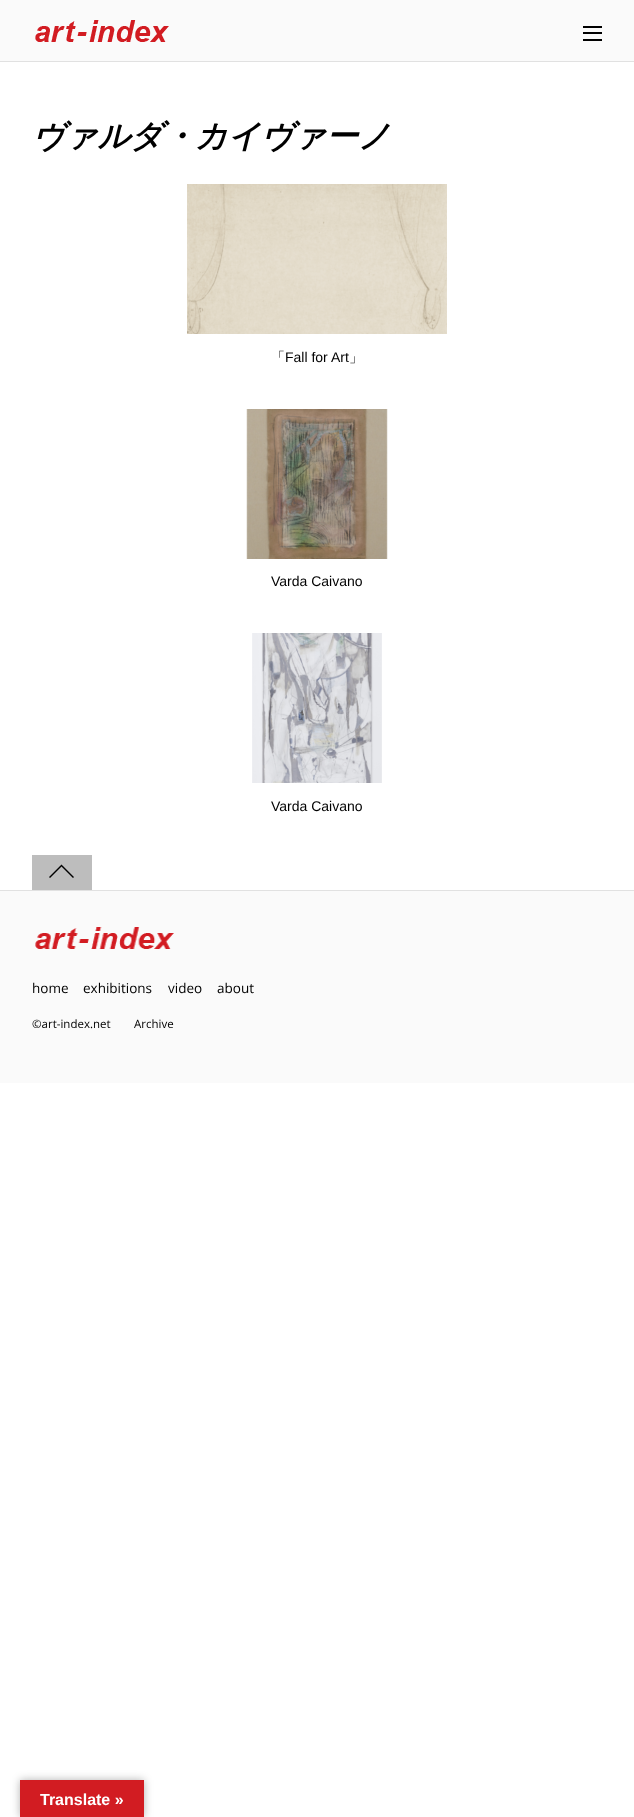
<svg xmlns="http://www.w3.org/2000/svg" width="634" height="1817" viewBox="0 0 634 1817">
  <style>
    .t1 { font: italic bold 32px WenQuanYi Zen Hei; fill: #000; }
    .t2 { font: 500 14px WenQuanYi Zen Hei; fill: #000; }
    .t3 { font: 14px Liberation Sans; fill: #000; }
    .t4 { font: 13.5px Open Sans; fill: #000; }
    .t5 { font: 11.5px Open Sans; fill: #000; }
    .t6 { font: bold 16px Liberation Sans; fill: #fff; }
  </style>
  <rect width="100%" height="100%" fill="#fff"/>
  <rect x="0" y="0" width="634" height="61" fill="#fafafa"/>
  <rect x="0" y="61" width="634" height="1" fill="#e1e1e1"/>
  <image x="35" y="20" width="134" height="22" href="images/1.png"/>
  <rect x="583" y="39" width="19" height="2" fill="#000"/>
  <rect x="583" y="26" width="19" height="2" fill="#000"/>
  <rect x="583" y="32" width="19" height="2" fill="#000"/>
  <text x="32" y="147" class="t1">ヴァルダ・カイヴァーノ</text>
  <image x="187" y="184" width="260" height="150" href="images/2.png"/>
  <text x="271" y="362" class="t2">「</text>
  <text x="285" y="362" class="t3">Fall for Art</text>
  <text x="349" y="362" class="t2">」</text>
  <image x="246" y="409" width="142" height="150" href="images/3.png"/>
  <text x="271" y="586" class="t3">Varda Caivano</text>
  <image x="252" y="633" width="130" height="150" href="images/4.png"/>
  <text x="271" y="811" class="t3">Varda Caivano</text>
  <rect x="0" y="891" width="634" height="192" fill="#fafafa"/>
  <rect x="0" y="890" width="634" height="1" fill="#e1e1e1"/>
  <rect x="32" y="855" width="60" height="35" fill="#bdbdbd"/>
  <path d="M74 877L73 878L61.5 866.5L50 878L49 877L61.5 864.5Z" fill="#000"/>
  <image x="35" y="927" width="139" height="22" href="images/5.png"/>
  <text x="32" y="993" class="t4">home</text>
  <text x="83" y="993" class="t4">exhibitions</text>
  <text x="168" y="993" class="t4">video</text>
  <text x="217" y="993" class="t4">about</text>
  <text x="32" y="1028" class="t5">©art-index.net</text>
  <text x="134" y="1028" class="t5">Archive</text>
  <rect x="20" y="1780" width="124" height="37" fill="#0000004d" filter="blur(4.5px)"/>
  <rect x="20" y="1780" width="124" height="37" fill="#d21c22"/>
  <text x="40" y="1805" class="t6">Translate »</text>
</svg>
